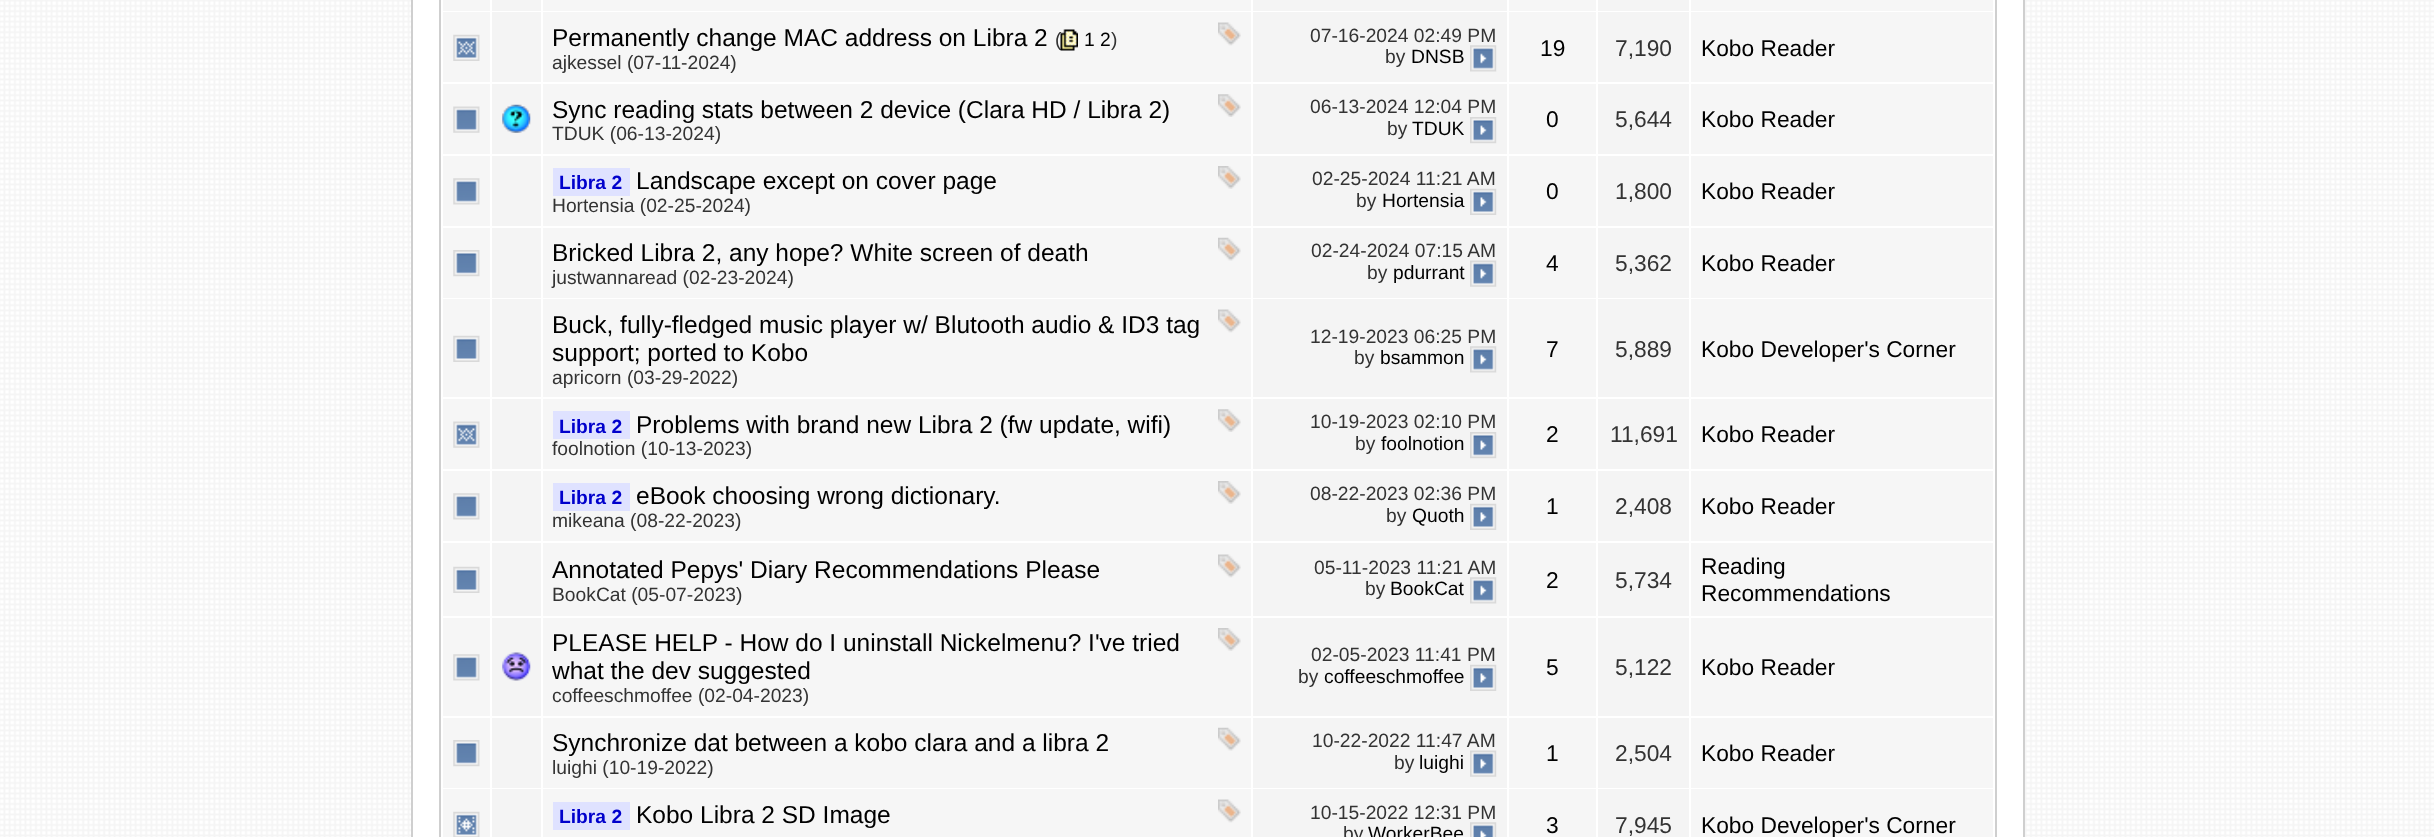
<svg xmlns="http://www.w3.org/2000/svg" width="2434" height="837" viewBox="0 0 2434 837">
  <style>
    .t1 { font: 24.5px Liberation Sans; fill: #000; }
    .t2 { font: 19.25px Liberation Sans; fill: #333; }
    .t3 { font: 19.25px Liberation Sans; fill: #000; }
    .t4 { font: 22.75px Liberation Sans; fill: #000; }
    .t5 { font: 22.75px Liberation Sans; fill: #333; }
    .t6 { font: bold 19.25px Liberation Sans; fill: #00c; }
  </style>
  <rect width="100%" height="100%" fill="#fff"/>
  <image x="0" y="0" width="2434" height="837" href="images/1.png"/>
  <rect x="412" y="-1" width="1612" height="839" fill="#fff" stroke="#cfcfcf" stroke-width="2"/>
  <rect x="440" y="-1" width="1556" height="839" fill="none" stroke="#cfcfcf" stroke-width="2"/>
  <rect x="443" y="0" width="47" height="11" fill="#f6f6f6"/>
  <rect x="492" y="0" width="49" height="11" fill="#f4f4f4"/>
  <rect x="543" y="0" width="708" height="11" fill="#f6f6f6"/>
  <rect x="1253" y="0" width="254" height="11" fill="#f4f4f4"/>
  <rect x="1509" y="0" width="87" height="11" fill="#f6f6f6"/>
  <rect x="1598" y="0" width="91" height="11" fill="#f4f4f4"/>
  <rect x="1691" y="0" width="302" height="11" fill="#f6f6f6"/>
  <rect x="443" y="12" width="47" height="70" fill="#f6f6f6"/>
  <image x="453" y="34" width="27" height="27" href="images/2.png"/>
  <rect x="492" y="12" width="49" height="70" fill="#f4f4f4"/>
  <rect x="543" y="12" width="708" height="70" fill="#f6f6f6"/>
  <text x="552" y="46" class="t1">Permanently change MAC address on Libra 2</text>
  <text x="1055" y="46" class="t2">(</text>
  <image x="1060" y="29" width="18" height="22" href="images/3.png"/>
  <text x="1084" y="46" class="t3">1 2</text>
  <text x="1111" y="46" class="t2">)</text>
  <image x="1218" y="22" width="23" height="24" href="images/4.png"/>
  <text x="552" y="69" class="t2">ajkessel (07-11-2024)</text>
  <rect x="1253" y="12" width="254" height="70" fill="#f4f4f4"/>
  <text x="1310" y="42" class="t2">07-16-2024 02:49 PM</text>
  <text x="1385" y="63" class="t2">by</text>
  <text x="1411" y="63" class="t3">DNSB</text>
  <image x="1470" y="45" width="27" height="27" href="images/5.png"/>
  <rect x="1509" y="12" width="87" height="70" fill="#f6f6f6"/>
  <text x="1540" y="56" class="t4">19</text>
  <rect x="1598" y="12" width="91" height="70" fill="#f4f4f4"/>
  <text x="1615" y="56" class="t5">7,190</text>
  <rect x="1691" y="12" width="302" height="70" fill="#f6f6f6"/>
  <text x="1701" y="56" class="t4">Kobo Reader</text>
  <rect x="443" y="84" width="47" height="70" fill="#f6f6f6"/>
  <image x="453" y="106" width="27" height="27" href="images/6.png"/>
  <rect x="492" y="84" width="49" height="70" fill="#f4f4f4"/>
  <image x="502" y="104" width="29" height="29" href="images/7.png"/>
  <rect x="543" y="84" width="708" height="70" fill="#f6f6f6"/>
  <text x="552" y="118" class="t1">Sync reading stats between 2 device (Clara HD / Libra 2)</text>
  <image x="1218" y="94" width="23" height="23" href="images/8.png"/>
  <text x="552" y="140" class="t2">TDUK (06-13-2024)</text>
  <rect x="1253" y="84" width="254" height="70" fill="#f4f4f4"/>
  <text x="1310" y="113" class="t2">06-13-2024 12:04 PM</text>
  <text x="1387" y="135" class="t2">by</text>
  <text x="1412" y="135" class="t3">TDUK</text>
  <image x="1470" y="117" width="27" height="27" href="images/9.png"/>
  <rect x="1509" y="84" width="87" height="70" fill="#f6f6f6"/>
  <text x="1546" y="127" class="t4">0</text>
  <rect x="1598" y="84" width="91" height="70" fill="#f4f4f4"/>
  <text x="1615" y="127" class="t5">5,644</text>
  <rect x="1691" y="84" width="302" height="70" fill="#f6f6f6"/>
  <text x="1701" y="127" class="t4">Kobo Reader</text>
  <rect x="443" y="156" width="47" height="70" fill="#f6f6f6"/>
  <image x="453" y="178" width="27" height="27" href="images/10.png"/>
  <rect x="492" y="156" width="49" height="70" fill="#f4f4f4"/>
  <rect x="543" y="156" width="708" height="70" fill="#f6f6f6"/>
  <rect x="553" y="168" width="77" height="28" fill="#dfe2ff"/>
  <text x="559" y="189" class="t6">Libra 2</text>
  <text x="636" y="189" class="t1">Landscape except on cover page</text>
  <image x="1218" y="166" width="23" height="23" href="images/11.png"/>
  <text x="552" y="212" class="t2">Hortensia (02-25-2024)</text>
  <rect x="1253" y="156" width="254" height="70" fill="#f4f4f4"/>
  <text x="1312" y="185" class="t2">02-25-2024 11:21 AM</text>
  <text x="1356" y="207" class="t2">by</text>
  <text x="1382" y="207" class="t3">Hortensia</text>
  <image x="1470" y="188" width="27" height="27" href="images/12.png"/>
  <rect x="1509" y="156" width="87" height="70" fill="#f6f6f6"/>
  <text x="1546" y="199" class="t4">0</text>
  <rect x="1598" y="156" width="91" height="70" fill="#f4f4f4"/>
  <text x="1615" y="199" class="t5">1,800</text>
  <rect x="1691" y="156" width="302" height="70" fill="#f6f6f6"/>
  <text x="1701" y="199" class="t4">Kobo Reader</text>
  <rect x="443" y="228" width="47" height="70" fill="#f6f6f6"/>
  <image x="453" y="250" width="27" height="27" href="images/13.png"/>
  <rect x="492" y="228" width="49" height="70" fill="#f4f4f4"/>
  <rect x="543" y="228" width="708" height="70" fill="#f6f6f6"/>
  <text x="552" y="261" class="t1">Bricked Libra 2, any hope? White screen of death</text>
  <image x="1218" y="237" width="23" height="24" href="images/14.png"/>
  <text x="552" y="284" class="t2">justwannaread (02-23-2024)</text>
  <rect x="1253" y="228" width="254" height="70" fill="#f4f4f4"/>
  <text x="1311" y="257" class="t2">02-24-2024 07:15 AM</text>
  <text x="1367" y="279" class="t2">by</text>
  <text x="1393" y="279" class="t3">pdurrant</text>
  <image x="1470" y="260" width="27" height="27" href="images/15.png"/>
  <rect x="1509" y="228" width="87" height="70" fill="#f6f6f6"/>
  <text x="1546" y="271" class="t4">4</text>
  <rect x="1598" y="228" width="91" height="70" fill="#f4f4f4"/>
  <text x="1615" y="271" class="t5">5,362</text>
  <rect x="1691" y="228" width="302" height="70" fill="#f6f6f6"/>
  <text x="1701" y="271" class="t4">Kobo Reader</text>
  <rect x="443" y="299" width="47" height="98" fill="#f6f6f6"/>
  <image x="453" y="335" width="27" height="27" href="images/16.png"/>
  <rect x="492" y="299" width="49" height="98" fill="#f4f4f4"/>
  <rect x="543" y="299" width="708" height="98" fill="#f6f6f6"/>
  <text x="552" y="333" class="t1">Buck, fully-fledged music player w/ Blutooth audio &amp; ID3 tag</text>
  <image x="1218" y="309" width="23" height="24" href="images/4.png"/>
  <text x="552" y="361" class="t1">support; ported to Kobo</text>
  <text x="552" y="384" class="t2">apricorn (03-29-2022)</text>
  <rect x="1253" y="299" width="254" height="98" fill="#f4f4f4"/>
  <text x="1310" y="343" class="t2">12-19-2023 06:25 PM</text>
  <text x="1354" y="364" class="t2">by</text>
  <text x="1380" y="364" class="t3">bsammon</text>
  <image x="1470" y="346" width="27" height="27" href="images/5.png"/>
  <rect x="1509" y="299" width="87" height="98" fill="#f6f6f6"/>
  <text x="1546" y="357" class="t4">7</text>
  <rect x="1598" y="299" width="91" height="98" fill="#f4f4f4"/>
  <text x="1615" y="357" class="t5">5,889</text>
  <rect x="1691" y="299" width="302" height="98" fill="#f6f6f6"/>
  <text x="1701" y="357" class="t4">Kobo Developer's Corner</text>
  <rect x="443" y="399" width="47" height="70" fill="#f6f6f6"/>
  <image x="453" y="421" width="27" height="27" href="images/17.png"/>
  <rect x="492" y="399" width="49" height="70" fill="#f4f4f4"/>
  <rect x="543" y="399" width="708" height="70" fill="#f6f6f6"/>
  <rect x="553" y="411" width="77" height="28" fill="#dfe2ff"/>
  <text x="559" y="433" class="t6">Libra 2</text>
  <text x="636" y="433" class="t1">Problems with brand new Libra 2 (fw update, wifi)</text>
  <image x="1218" y="409" width="23" height="23" href="images/8.png"/>
  <text x="552" y="455" class="t2">foolnotion (10-13-2023)</text>
  <rect x="1253" y="399" width="254" height="70" fill="#f4f4f4"/>
  <text x="1310" y="428" class="t2">10-19-2023 02:10 PM</text>
  <text x="1355" y="450" class="t2">by</text>
  <text x="1381" y="450" class="t3">foolnotion</text>
  <image x="1470" y="432" width="27" height="27" href="images/9.png"/>
  <rect x="1509" y="399" width="87" height="70" fill="#f6f6f6"/>
  <text x="1546" y="442" class="t4">2</text>
  <rect x="1598" y="399" width="91" height="70" fill="#f4f4f4"/>
  <text x="1610" y="442" class="t5">11,691</text>
  <rect x="1691" y="399" width="302" height="70" fill="#f6f6f6"/>
  <text x="1701" y="442" class="t4">Kobo Reader</text>
  <rect x="443" y="471" width="47" height="70" fill="#f6f6f6"/>
  <image x="453" y="493" width="27" height="27" href="images/10.png"/>
  <rect x="492" y="471" width="49" height="70" fill="#f4f4f4"/>
  <rect x="543" y="471" width="708" height="70" fill="#f6f6f6"/>
  <rect x="553" y="483" width="77" height="28" fill="#dfe2ff"/>
  <text x="559" y="504" class="t6">Libra 2</text>
  <text x="636" y="504" class="t1">eBook choosing wrong dictionary.</text>
  <image x="1218" y="481" width="23" height="23" href="images/11.png"/>
  <text x="552" y="527" class="t2">mikeana (08-22-2023)</text>
  <rect x="1253" y="471" width="254" height="70" fill="#f4f4f4"/>
  <text x="1310" y="500" class="t2">08-22-2023 02:36 PM</text>
  <text x="1386" y="522" class="t2">by</text>
  <text x="1412" y="522" class="t3">Quoth</text>
  <image x="1470" y="503" width="27" height="27" href="images/12.png"/>
  <rect x="1509" y="471" width="87" height="70" fill="#f6f6f6"/>
  <text x="1546" y="514" class="t4">1</text>
  <rect x="1598" y="471" width="91" height="70" fill="#f4f4f4"/>
  <text x="1615" y="514" class="t5">2,408</text>
  <rect x="1691" y="471" width="302" height="70" fill="#f6f6f6"/>
  <text x="1701" y="514" class="t4">Kobo Reader</text>
  <rect x="443" y="543" width="47" height="73" fill="#f6f6f6"/>
  <image x="453" y="566" width="27" height="27" href="images/16.png"/>
  <rect x="492" y="543" width="49" height="73" fill="#f4f4f4"/>
  <rect x="543" y="543" width="708" height="73" fill="#f6f6f6"/>
  <text x="552" y="578" class="t1">Annotated Pepys' Diary Recommendations Please</text>
  <image x="1218" y="554" width="23" height="24" href="images/4.png"/>
  <text x="552" y="601" class="t2">BookCat (05-07-2023)</text>
  <rect x="1253" y="543" width="254" height="73" fill="#f4f4f4"/>
  <text x="1314" y="574" class="t2">05-11-2023 11:21 AM</text>
  <text x="1365" y="595" class="t2">by</text>
  <text x="1390" y="595" class="t3">BookCat</text>
  <image x="1470" y="577" width="27" height="27" href="images/5.png"/>
  <rect x="1509" y="543" width="87" height="73" fill="#f6f6f6"/>
  <text x="1546" y="588" class="t4">2</text>
  <rect x="1598" y="543" width="91" height="73" fill="#f4f4f4"/>
  <text x="1615" y="588" class="t5">5,734</text>
  <rect x="1691" y="543" width="302" height="73" fill="#f6f6f6"/>
  <text x="1701" y="574" class="t4">Reading</text>
  <text x="1701" y="601" class="t4">Recommendations</text>
  <rect x="443" y="618" width="47" height="98" fill="#f6f6f6"/>
  <image x="453" y="654" width="27" height="27" href="images/10.png"/>
  <rect x="492" y="618" width="49" height="98" fill="#f4f4f4"/>
  <image x="502" y="652" width="29" height="29" href="images/18.png"/>
  <rect x="543" y="618" width="708" height="98" fill="#f6f6f6"/>
  <text x="552" y="651" class="t1">PLEASE HELP - How do I uninstall Nickelmenu? I've tried</text>
  <image x="1218" y="628" width="23" height="23" href="images/11.png"/>
  <text x="552" y="679" class="t1">what the dev suggested</text>
  <text x="552" y="702" class="t2">coffeeschmoffee (02-04-2023)</text>
  <rect x="1253" y="618" width="254" height="98" fill="#f4f4f4"/>
  <text x="1311" y="661" class="t2">02-05-2023 11:41 PM</text>
  <text x="1298" y="683" class="t2">by</text>
  <text x="1324" y="683" class="t3">coffeeschmoffee</text>
  <image x="1470" y="664" width="27" height="27" href="images/12.png"/>
  <rect x="1509" y="618" width="87" height="98" fill="#f6f6f6"/>
  <text x="1546" y="675" class="t4">5</text>
  <rect x="1598" y="618" width="91" height="98" fill="#f4f4f4"/>
  <text x="1615" y="675" class="t5">5,122</text>
  <rect x="1691" y="618" width="302" height="98" fill="#f6f6f6"/>
  <text x="1701" y="675" class="t4">Kobo Reader</text>
  <rect x="443" y="718" width="47" height="70" fill="#f6f6f6"/>
  <image x="453" y="740" width="27" height="27" href="images/13.png"/>
  <rect x="492" y="718" width="49" height="70" fill="#f4f4f4"/>
  <rect x="543" y="718" width="708" height="70" fill="#f6f6f6"/>
  <text x="552" y="751" class="t1">Synchronize dat between a kobo clara and a libra 2</text>
  <image x="1218" y="727" width="23" height="24" href="images/14.png"/>
  <text x="552" y="774" class="t2">luighi (10-19-2022)</text>
  <rect x="1253" y="718" width="254" height="70" fill="#f4f4f4"/>
  <text x="1312" y="747" class="t2">10-22-2022 11:47 AM</text>
  <text x="1394" y="769" class="t2">by</text>
  <text x="1419" y="769" class="t3">luighi</text>
  <image x="1470" y="750" width="27" height="27" href="images/15.png"/>
  <rect x="1509" y="718" width="87" height="70" fill="#f6f6f6"/>
  <text x="1546" y="761" class="t4">1</text>
  <rect x="1598" y="718" width="91" height="70" fill="#f4f4f4"/>
  <text x="1615" y="761" class="t5">2,504</text>
  <rect x="1691" y="718" width="302" height="70" fill="#f6f6f6"/>
  <text x="1701" y="761" class="t4">Kobo Reader</text>
  <rect x="443" y="789" width="47" height="48" fill="#f6f6f6"/>
  <image x="453" y="811" width="27" height="26" href="images/19.png"/>
  <rect x="492" y="789" width="49" height="48" fill="#f4f4f4"/>
  <rect x="543" y="789" width="708" height="48" fill="#f6f6f6"/>
  <rect x="553" y="802" width="77" height="28" fill="#dfe2ff"/>
  <text x="559" y="823" class="t6">Libra 2</text>
  <text x="636" y="823" class="t1">Kobo Libra 2 SD Image</text>
  <image x="1218" y="799" width="23" height="24" href="images/4.png"/>
  <rect x="1253" y="789" width="254" height="48" fill="#f4f4f4"/>
  <text x="1310" y="819" class="t2">10-15-2022 12:31 PM</text>
  <text x="1343" y="840" class="t2">by</text>
  <text x="1368" y="840" class="t3">WorkerBee</text>
  <image x="1470" y="822" width="27" height="15" href="images/20.png"/>
  <rect x="1509" y="789" width="87" height="48" fill="#f6f6f6"/>
  <text x="1546" y="833" class="t4">3</text>
  <rect x="1598" y="789" width="91" height="48" fill="#f4f4f4"/>
  <text x="1615" y="833" class="t5">7,945</text>
  <rect x="1691" y="789" width="302" height="48" fill="#f6f6f6"/>
  <text x="1701" y="833" class="t4">Kobo Developer's Corner</text>
</svg>
